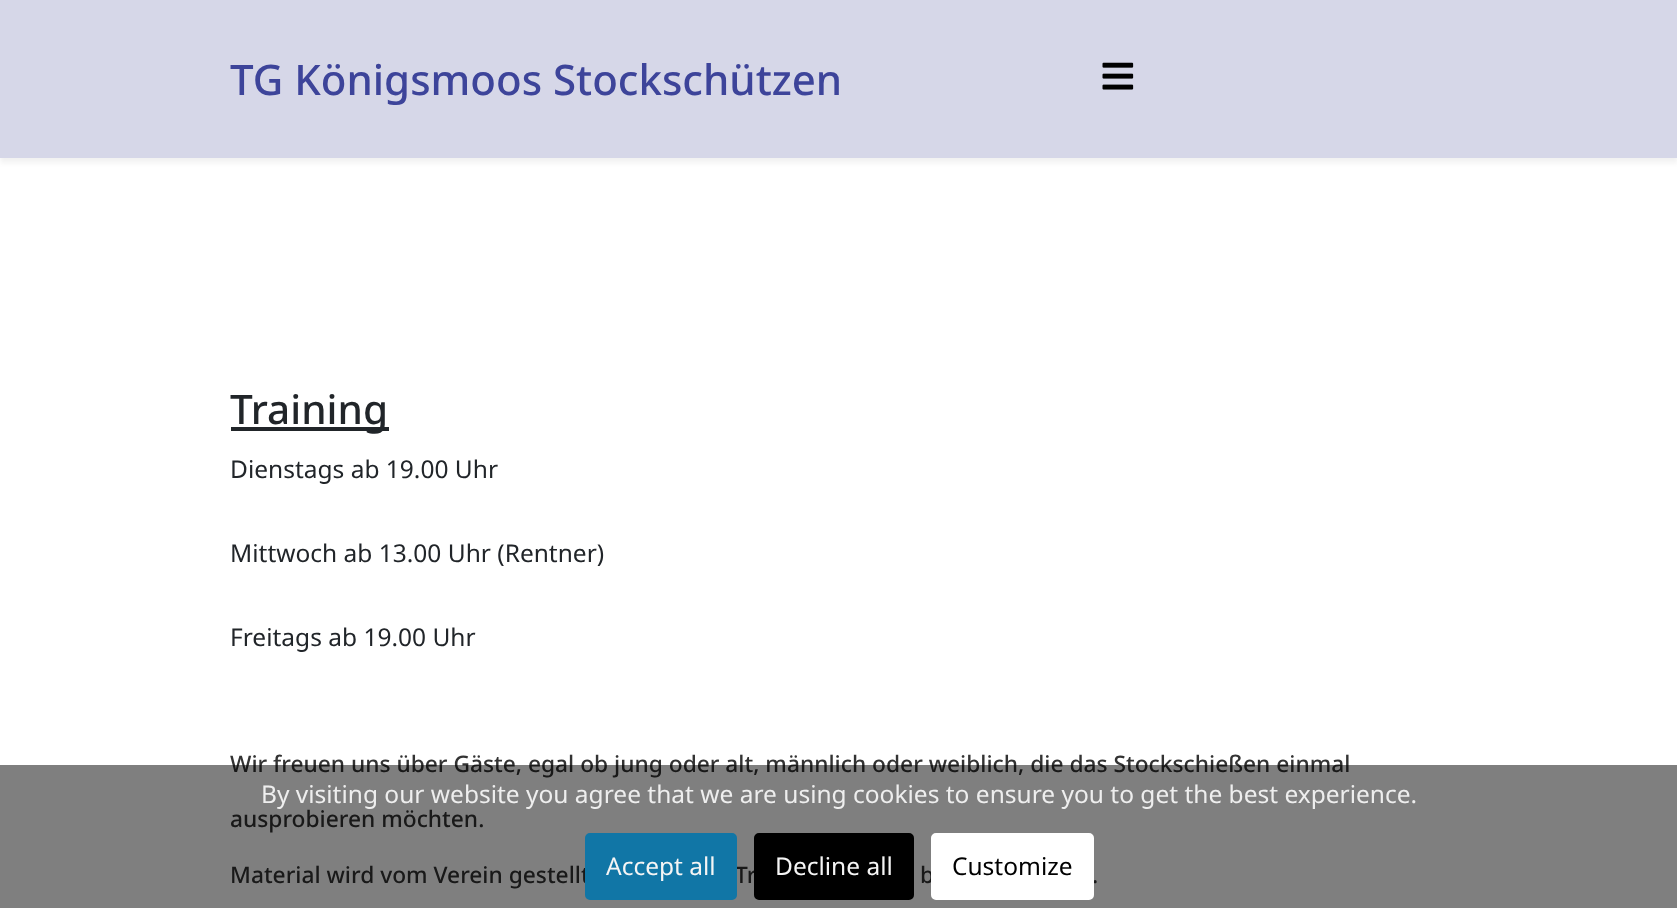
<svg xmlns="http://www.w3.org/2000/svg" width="1677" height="908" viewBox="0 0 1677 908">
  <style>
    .t1 { font: 500 42px Noto Sans; fill: #3d449a; }
    .t2 { font: 500 40.5px Noto Sans; fill: #212529; }
    .t3 { font: 24.5px Noto Sans; fill: #212529; }
    .t4 { font: 500 22.75px Noto Sans; fill: #333; }
    .t5 { font: 24.5px Noto Sans; fill: #eee; }
    .t6 { font: 24.5px Noto Sans; fill: #f5f5f5; }
    .t7 { font: 24.5px Noto Sans; fill: #000; }
  </style>
  <rect width="100%" height="100%" fill="#fff"/>
  <rect x="0" y="5" width="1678" height="158" fill="#0000000d" filter="blur(2.5px)"/>
  <rect x="0" y="0" width="1677" height="158" fill="#d6d7e8"/>
  <text x="230" y="95" class="t1">TG Königsmoos Stockschützen</text>
  <image x="1102" y="62" width="32" height="28" href="images/1.png"/>
  <rect x="231" y="427" width="158" height="4" fill="#212529"/>
  <text x="230" y="424" class="t2">Training</text>
  <text x="230" y="478" class="t3">Dienstags ab 19.00 Uhr</text>
  <text x="230" y="562" class="t3">Mittwoch ab 13.00 Uhr (Rentner)</text>
  <text x="230" y="646" class="t3">Freitags ab 19.00 Uhr</text>
  <text x="230" y="772" class="t4">Wir freuen uns über Gäste, egal ob jung oder alt, männlich oder weiblich, die das Stockschießen einmal</text>
  <text x="230" y="827" class="t4">ausprobieren möchten.</text>
  <text x="230" y="883" class="t4">Material wird vom Verein gestellt</text>
  <text x="735" y="883" class="t4">Tr</text>
  <text x="920" y="883" class="t4">b</text>
  <text x="1092" y="883" class="t4">.</text>
  <rect x="0" y="765" width="1677" height="143" fill="#00000080"/>
  <text x="261" y="803" class="t5">By visiting our website you agree that we are using cookies to ensure you to get the best experience.</text>
  <rect x="587" y="835" width="148" height="63" rx="3" fill="#1176a6" stroke="#1176a6" stroke-width="4"/>
  <text x="606" y="875" class="t6">Accept all</text>
  <rect x="756" y="835" width="156" height="63" rx="3" fill="#000" stroke="#000" stroke-width="4"/>
  <text x="775" y="875" class="t6">Decline all</text>
  <rect x="933" y="835" width="159" height="63" rx="3" fill="#fff" stroke="#fff" stroke-width="4"/>
  <text x="952" y="875" class="t7">Customize</text>
</svg>
